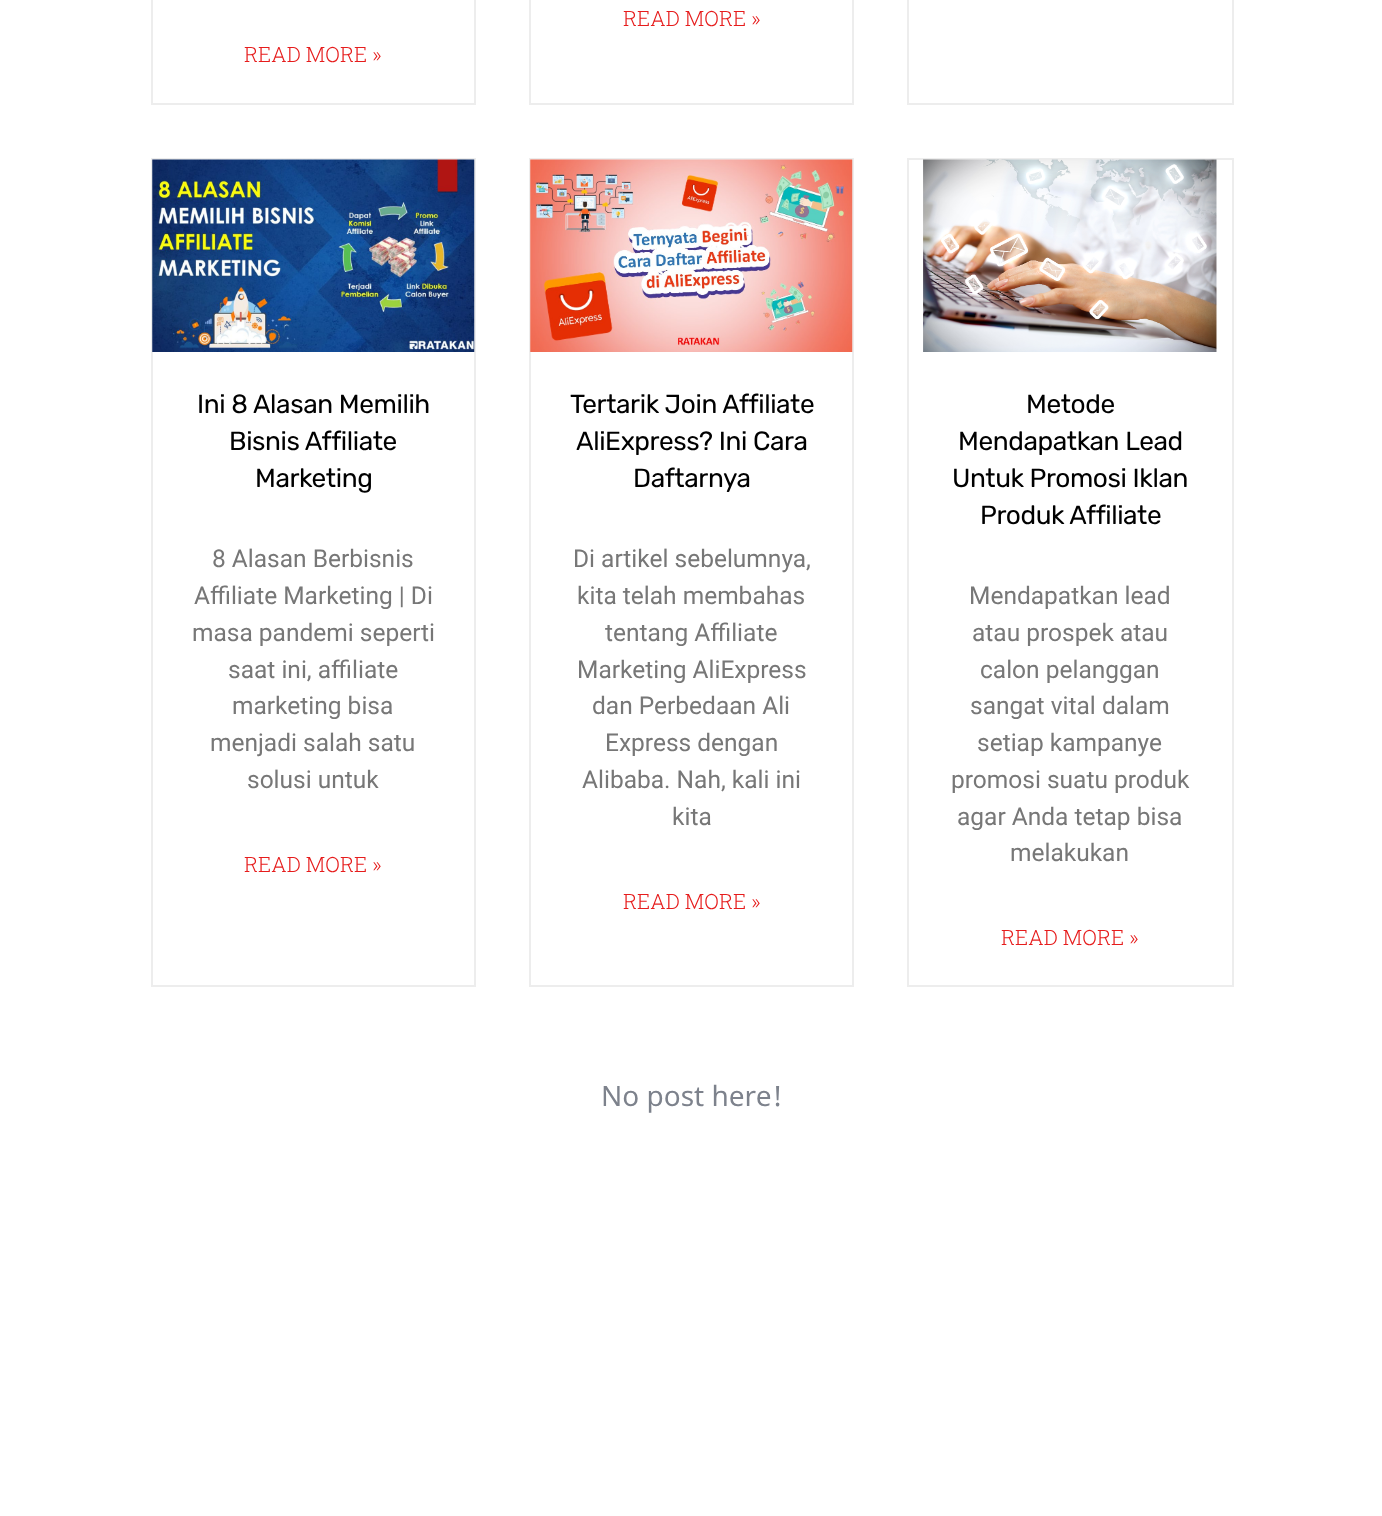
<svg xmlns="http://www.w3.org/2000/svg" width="1382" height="1516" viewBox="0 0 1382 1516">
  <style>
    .t1 { font: 300 21px Roboto Slab; fill: #e61c1c; }
    .t2 { font: 26.25px Rubik; letter-spacing: -0.4px; fill: #000; }
    .t3 { font: 24.5px Roboto; fill: #777; }
    .t4 { font: 28px Noto Sans; fill: #7d828c; }
  </style>
  <rect width="100%" height="100%" fill="#fff"/>
  <rect x="530" y="-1" width="323" height="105" fill="none" stroke="#ededed" stroke-width="2"/>
  <text x="623" y="26" class="t1">READ MORE »</text>
  <rect x="908" y="-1" width="325" height="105" fill="none" stroke="#ededed" stroke-width="2"/>
  <rect x="152" y="-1" width="323" height="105" fill="none" stroke="#ededed" stroke-width="2"/>
  <text x="244" y="62" class="t1">READ MORE »</text>
  <rect x="152" y="159" width="323" height="827" fill="none" stroke="#ededed" stroke-width="2"/>
  <image x="152" y="159" width="323" height="193" href="images/1.png"/>
  <text x="197" y="413" class="t2">Ini 8 Alasan Memilih</text>
  <text x="229" y="450" class="t2">Bisnis Affiliate</text>
  <text x="255" y="487" class="t2">Marketing</text>
  <text x="212" y="567" class="t3">8 Alasan Berbisnis</text>
  <text x="194" y="604" class="t3">Affiliate Marketing | Di</text>
  <text x="192" y="641" class="t3">masa pandemi seperti</text>
  <text x="228" y="678" class="t3">saat ini, affiliate</text>
  <text x="232" y="714" class="t3">marketing bisa</text>
  <text x="210" y="751" class="t3">menjadi salah satu</text>
  <text x="247" y="788" class="t3">solusi untuk</text>
  <text x="244" y="872" class="t1">READ MORE »</text>
  <rect x="530" y="159" width="323" height="827" fill="none" stroke="#ededed" stroke-width="2"/>
  <image x="530" y="159" width="323" height="193" href="images/2.png"/>
  <text x="570" y="413" class="t2">Tertarik Join Affiliate</text>
  <text x="576" y="450" class="t2">AliExpress? Ini Cara</text>
  <text x="633" y="487" class="t2">Daftarnya</text>
  <text x="573" y="567" class="t3">Di artikel sebelumnya,</text>
  <text x="577" y="604" class="t3">kita telah membahas</text>
  <text x="605" y="641" class="t3">tentang Affiliate</text>
  <text x="577" y="678" class="t3">Marketing AliExpress</text>
  <text x="592" y="714" class="t3">dan Perbedaan Ali</text>
  <text x="605" y="751" class="t3">Express dengan</text>
  <text x="582" y="788" class="t3">Alibaba. Nah, kali ini</text>
  <text x="672" y="825" class="t3">kita</text>
  <text x="623" y="909" class="t1">READ MORE »</text>
  <rect x="908" y="159" width="325" height="827" fill="none" stroke="#ededed" stroke-width="2"/>
  <image x="923" y="159" width="294" height="193" href="images/3.png"/>
  <text x="1026" y="413" class="t2">Metode</text>
  <text x="958" y="450" class="t2">Mendapatkan Lead</text>
  <text x="952" y="487" class="t2">Untuk Promosi Iklan</text>
  <text x="980" y="524" class="t2">Produk Affiliate</text>
  <text x="969" y="604" class="t3">Mendapatkan lead</text>
  <text x="972" y="641" class="t3">atau prospek atau</text>
  <text x="980" y="678" class="t3">calon pelanggan</text>
  <text x="970" y="714" class="t3">sangat vital dalam</text>
  <text x="977" y="751" class="t3">setiap kampanye</text>
  <text x="951" y="788" class="t3">promosi suatu produk</text>
  <text x="957" y="825" class="t3">agar Anda tetap bisa</text>
  <text x="1010" y="861" class="t3">melakukan</text>
  <text x="1001" y="945" class="t1">READ MORE »</text>
  <text x="601" y="1106" class="t4">No post here!</text>
</svg>
